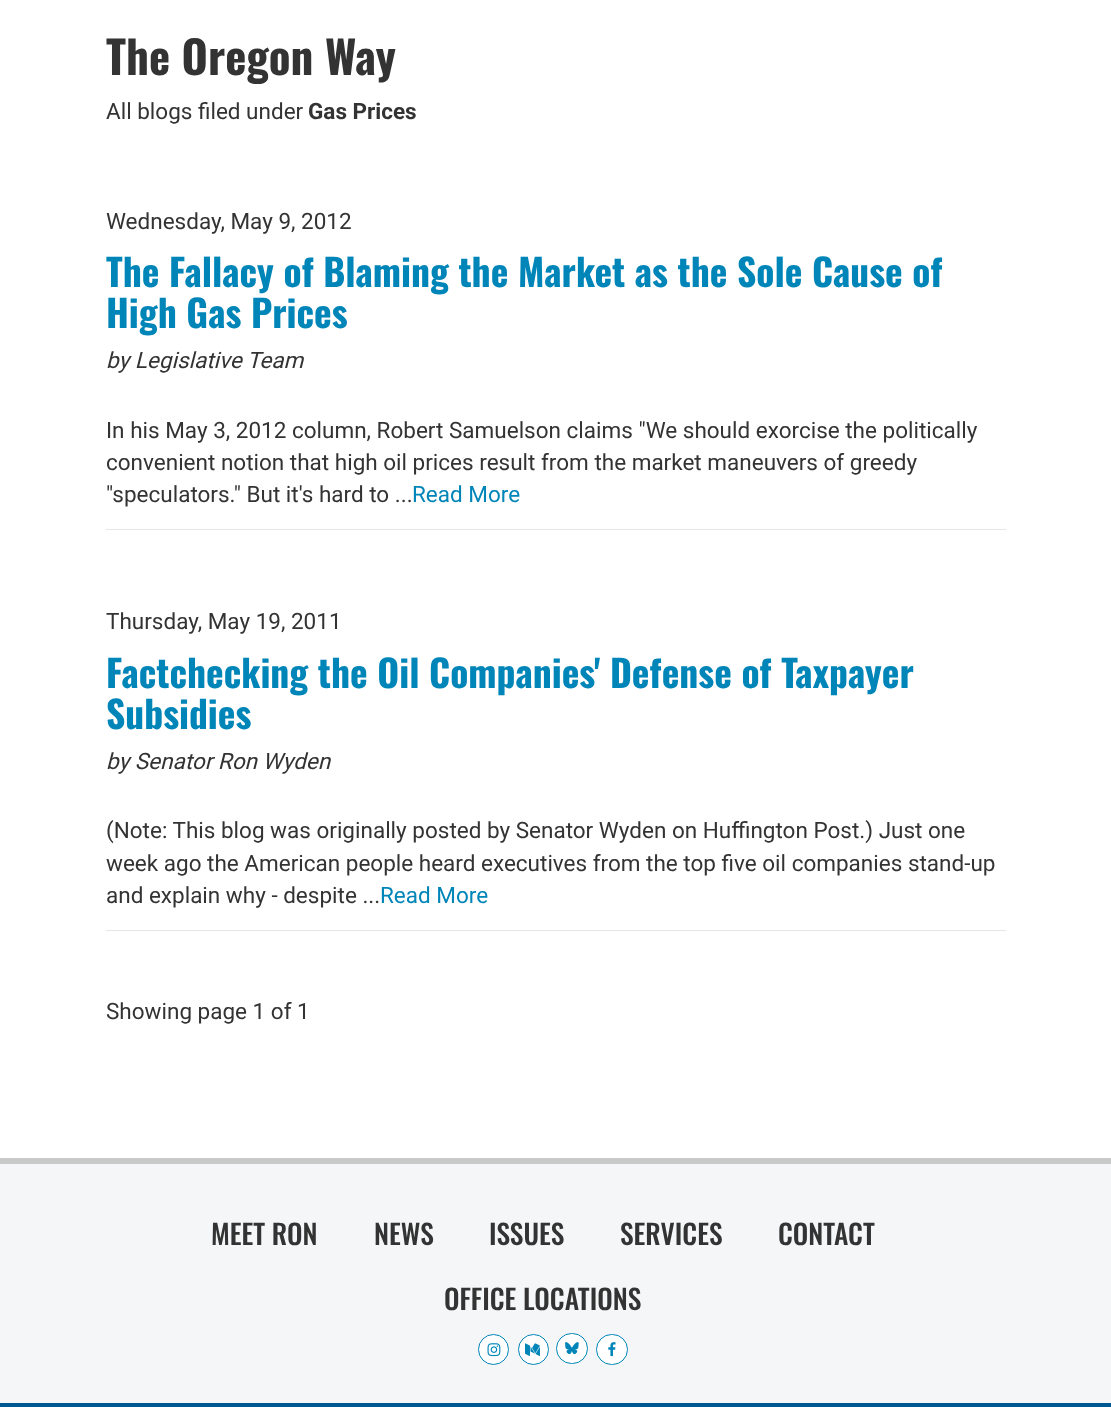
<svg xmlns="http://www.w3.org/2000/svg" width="1111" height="1407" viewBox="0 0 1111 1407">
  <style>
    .t1 { font: bold 45px Oswald; fill: #333; }
    .t2 { font: 22.5px Roboto; fill: #333; }
    .t3 { font: bold 22.5px Roboto; fill: #333; }
    .t4 { font: bold 37.5px Oswald; fill: #0085b8; }
    .t5 { font: italic 22.5px Roboto; fill: #333; }
    .t6 { font: 22.5px Roboto; fill: #0085b8; }
    .t7 { font: 500 27.5px Oswald; fill: #333; }
  </style>
  <rect width="100%" height="100%" fill="#fff"/>
  <text x="106" y="75" class="t1">The Oregon Way</text>
  <text x="106" y="119" class="t2">All blogs filed under</text>
  <text x="308" y="119" class="t3">Gas Prices</text>
  <rect x="106" y="529" width="900" height="1" fill="#e3e7e9"/>
  <text x="106" y="229" class="t2">Wednesday, May 9, 2012</text>
  <text x="106" y="287" class="t4">The Fallacy of Blaming the Market as the Sole Cause of</text>
  <text x="106" y="328" class="t4">High Gas Prices</text>
  <text x="106" y="368" class="t5">by Legislative Team</text>
  <text x="106" y="438" class="t2">In his May 3, 2012 column, Robert Samuelson claims "We should exorcise the politically</text>
  <text x="106" y="470" class="t2">convenient notion that high oil prices result from the market maneuvers of greedy</text>
  <text x="106" y="502" class="t2">"speculators." But it's hard to ...</text>
  <text x="412" y="502" class="t6">Read More</text>
  <rect x="106" y="930" width="900" height="1" fill="#e3e7e9"/>
  <text x="106" y="629" class="t2">Thursday, May 19, 2011</text>
  <text x="106" y="688" class="t4">Factchecking the Oil Companies' Defense of Taxpayer</text>
  <text x="106" y="729" class="t4">Subsidies</text>
  <text x="106" y="769" class="t5">by Senator Ron Wyden</text>
  <text x="106" y="838" class="t2">(Note: This blog was originally posted by Senator Wyden on Huffington Post.) Just one</text>
  <text x="106" y="871" class="t2">week ago the American people heard executives from the top five oil companies stand-up</text>
  <text x="106" y="903" class="t2">and explain why - despite ...</text>
  <text x="380" y="903" class="t6">Read More</text>
  <text x="106" y="1019" class="t2">Showing page 1 of 1</text>
  <rect x="0" y="1164" width="1111" height="239" fill="#f4f6f7"/>
  <rect x="0" y="1158" width="1111" height="6" fill="#c8caca"/>
  <text x="211" y="1245" class="t7">MEET RON</text>
  <text x="374" y="1245" class="t7">NEWS</text>
  <text x="489" y="1245" class="t7">ISSUES</text>
  <text x="620" y="1245" class="t7">SERVICES</text>
  <text x="778" y="1245" class="t7">CONTACT</text>
  <text x="444" y="1310" class="t7">OFFICE LOCATIONS</text>
  <circle cx="493.5" cy="1349.5" r="15" fill="#fff" stroke="#0085b8"/>
  <image x="487" y="1343" width="14" height="14" href="images/1.png"/>
  <circle cx="533.5" cy="1349.5" r="15" fill="#fff" stroke="#0085b8"/>
  <image x="525" y="1343" width="15" height="13" href="images/2.png"/>
  <rect x="556.5" y="1333.5" width="31" height="30" rx="15" fill="#fff" stroke="#0085b8"/>
  <image x="565" y="1342" width="14" height="13" href="images/3.png"/>
  <rect x="596.5" y="1334.5" width="31" height="30" rx="15" fill="#fff" stroke="#0085b8"/>
  <image x="608" y="1342" width="8" height="15" href="images/4.png"/>
  <rect x="0" y="1403" width="1111" height="4" fill="#005892"/>
</svg>
